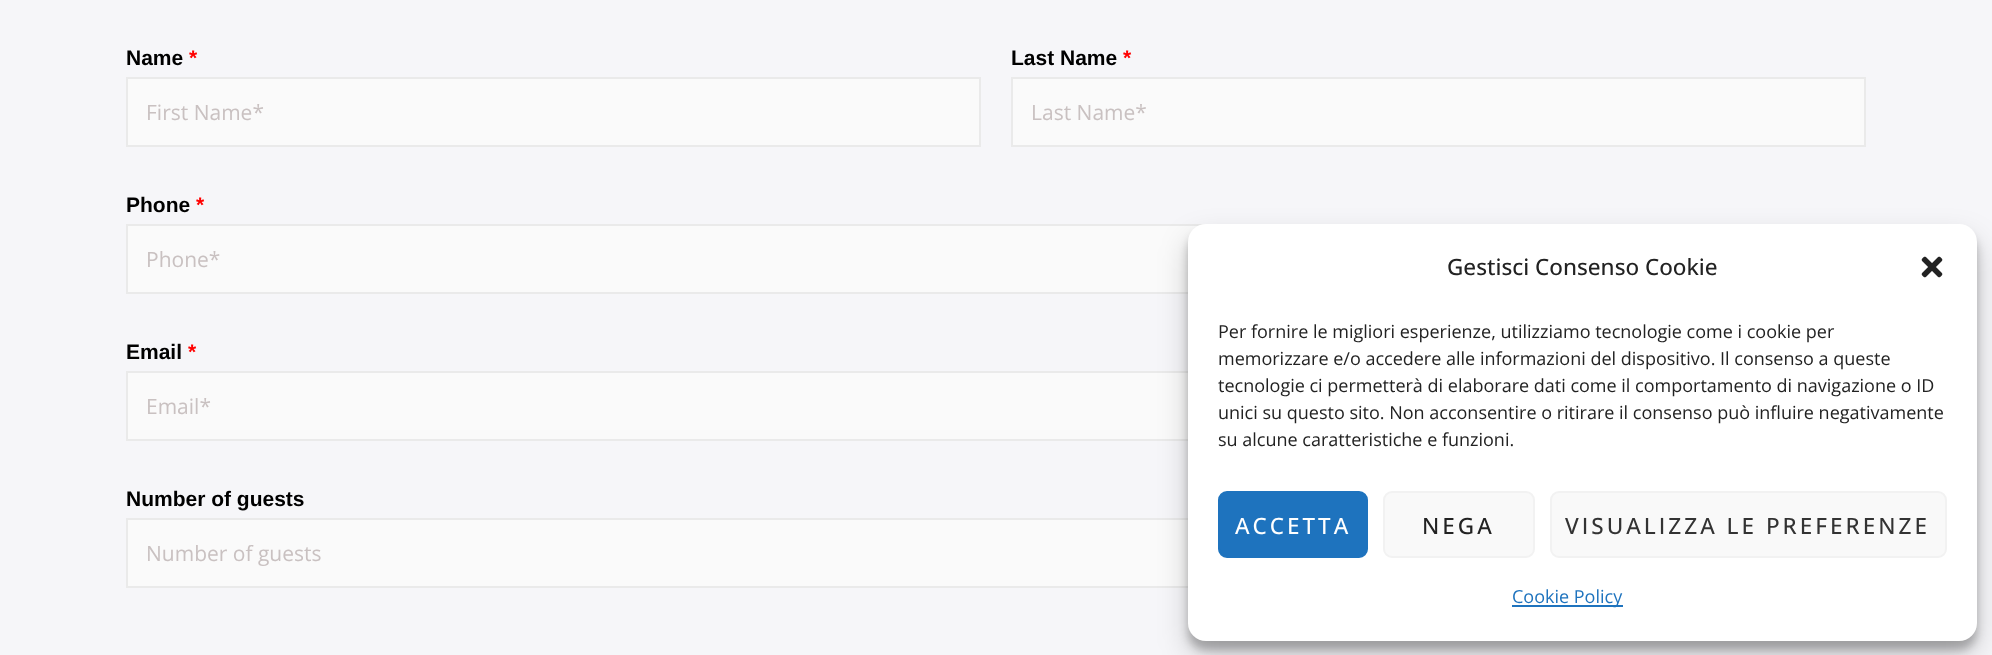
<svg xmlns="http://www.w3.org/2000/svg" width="1992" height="655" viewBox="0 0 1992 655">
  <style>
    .t1 { font: bold 21px Liberation Sans; fill: #000; }
    .t2 { font: bold 21px Liberation Sans; fill: #f00; }
    .t3 { font: 21px Open Sans; fill: #c9c1c1; }
    .t4 { font: 500 22.5px Open Sans; fill: #222; }
    .t5 { font: 18px Open Sans; fill: #222; }
    .t6 { font: 500 22.5px Open Sans; letter-spacing: 3px; fill: #fff; }
    .t7 { font: 500 22.5px Open Sans; letter-spacing: 3px; fill: #222; }
    .t8 { font: 500 22.5px Open Sans; letter-spacing: 3px; fill: #333; }
    .t9 { font: 18px Open Sans; fill: #1e73be; }
  </style>
  <rect width="100%" height="100%" fill="#f6f6f9"/>
  <text x="126" y="65" class="t1">Name</text>
  <text x="189" y="65" class="t2">*</text>
  <rect x="127" y="78" width="853" height="68" fill="#fafafa" stroke="#eaeaea" stroke-width="2"/>
  <text x="146" y="120" class="t3">First Name*</text>
  <text x="1011" y="65" class="t1">Last Name</text>
  <text x="1123" y="65" class="t2">*</text>
  <rect x="1012" y="78" width="853" height="68" fill="#fafafa" stroke="#eaeaea" stroke-width="2"/>
  <text x="1031" y="120" class="t3">Last Name*</text>
  <text x="126" y="212" class="t1">Phone</text>
  <text x="196" y="212" class="t2">*</text>
  <rect x="128" y="226" width="1070" height="66" fill="#fafafa"/>
  <rect x="127" y="225" width="1738" height="68" fill="none" stroke="#eaeaea" stroke-width="2"/>
  <text x="146" y="267" class="t3">Phone*</text>
  <text x="126" y="359" class="t1">Email</text>
  <text x="188" y="359" class="t2">*</text>
  <rect x="128" y="373" width="1060" height="66" fill="#fafafa"/>
  <rect x="127" y="372" width="1738" height="68" fill="none" stroke="#eaeaea" stroke-width="2"/>
  <text x="146" y="414" class="t3">Email*</text>
  <text x="126" y="506" class="t1">Number of guests</text>
  <rect x="128" y="520" width="1060" height="66" fill="#fafafa"/>
  <rect x="127" y="519" width="1738" height="68" fill="none" stroke="#eaeaea" stroke-width="2"/>
  <text x="146" y="561" class="t3">Number of guests</text>
  <rect x="1188" y="233" width="789" height="417" rx="18" fill="#0000003b" filter="blur(4.5px)"/>
  <rect x="1188" y="239" width="789" height="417" rx="18" fill="#00000030" filter="blur(15px)"/>
  <rect x="1188" y="224" width="789" height="417" rx="18" fill="#fff"/>
  <text x="1447" y="275" class="t4">Gestisci Consenso Cookie</text>
  <image x="1921" y="256" width="22" height="22" href="images/1.png"/>
  <text x="1218" y="338" class="t5">Per fornire le migliori esperienze, utilizziamo tecnologie come i cookie per</text>
  <text x="1218" y="365" class="t5">memorizzare e/o accedere alle informazioni del dispositivo. Il consenso a queste</text>
  <text x="1218" y="392" class="t5">tecnologie ci permetterà di elaborare dati come il comportamento di navigazione o ID</text>
  <text x="1218" y="419" class="t5">unici su questo sito. Non acconsentire o ritirare il consenso può influire negativamente</text>
  <text x="1218" y="446" class="t5">su alcune caratteristiche e funzioni.</text>
  <rect x="1219" y="492" width="148" height="65" rx="8" fill="#1e73be" stroke="#1e73be" stroke-width="2"/>
  <text x="1235" y="534" class="t6">ACCETTA</text>
  <rect x="1384" y="492" width="150" height="65" rx="8" fill="#f9f9f9" stroke="#f2f2f2" stroke-width="2"/>
  <text x="1422" y="534" class="t7">NEGA</text>
  <rect x="1551" y="492" width="395" height="65" rx="8" fill="#f9f9f9" stroke="#f2f2f2" stroke-width="2"/>
  <text x="1565" y="534" class="t8">VISUALIZZA LE PREFERENZE</text>
  <rect x="1512" y="605" width="111" height="2" fill="#1e73be"/>
  <text x="1512" y="603" class="t9">Cookie Policy</text>
</svg>
